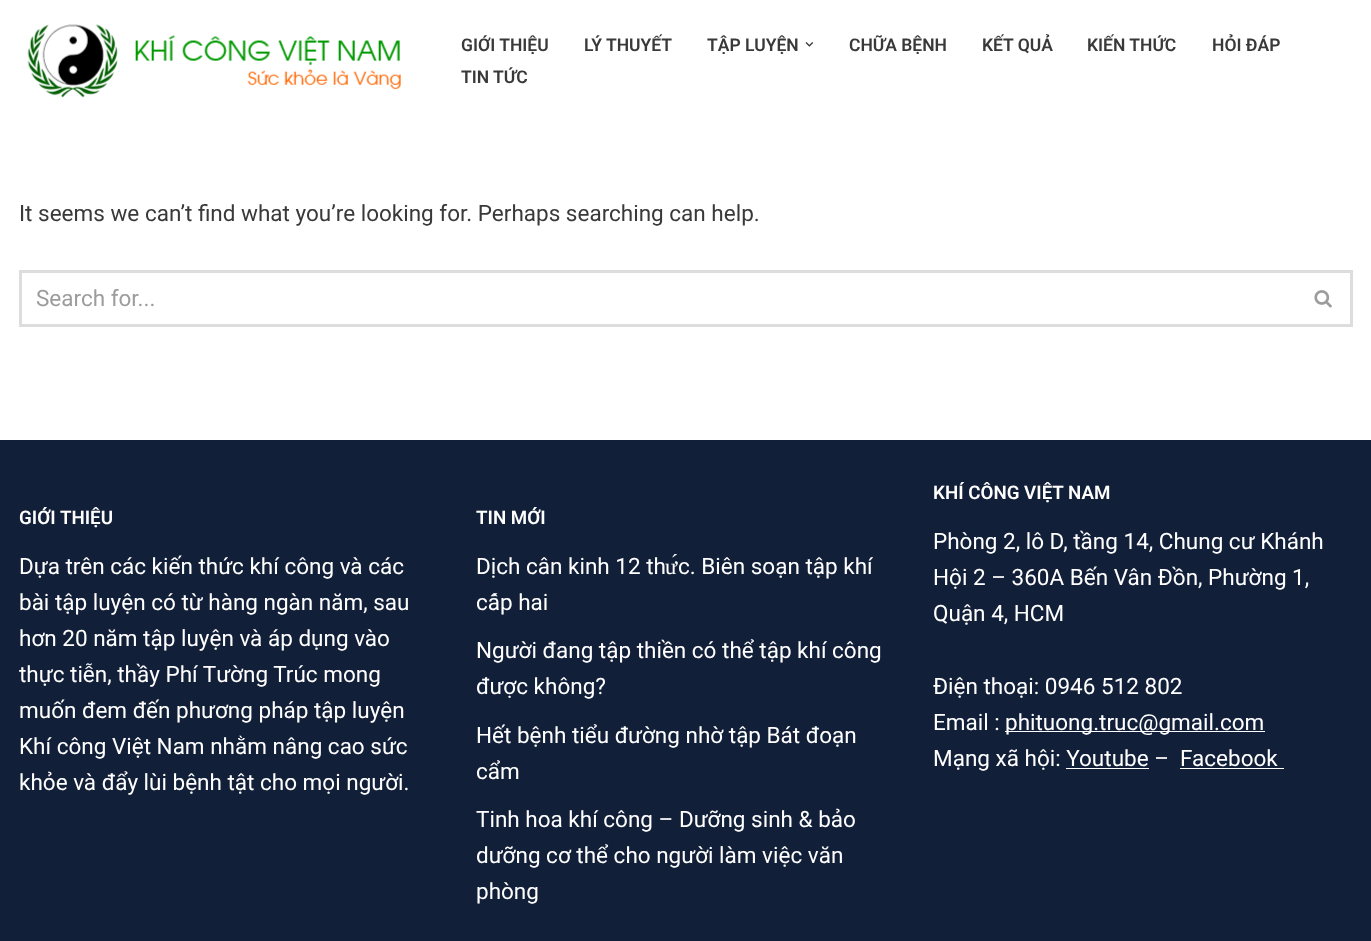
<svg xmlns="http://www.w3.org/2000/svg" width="1371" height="941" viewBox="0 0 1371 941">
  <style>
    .t1 { font: 600 17.5px Roboto; fill: #393939; }
    .t2 { font: 22.5px Roboto; fill: #393939; }
    .t3 { font: 22.5px Roboto; fill: #9c9c9c; }
    .t4 { font: 600 18.75px Roboto; fill: #fff; }
    .t5 { font: 22.5px Roboto; fill: #fff; }
    .t6 { font: 22.5px Liberation Serif; fill: #fff; }
  </style>
  <rect width="100%" height="100%" fill="#fff"/>
  <image x="27" y="24" width="374" height="74" href="images/1.png"/>
  <text x="461" y="51" class="t1">GIỚI THIỆU</text>
  <text x="584" y="51" class="t1">LÝ THUYẾT</text>
  <text x="707" y="51" class="t1">TẬP LUYỆN</text>
  <image x="805" y="42" width="9" height="5" href="images/2.png"/>
  <text x="849" y="51" class="t1">CHỮA BỆNH</text>
  <text x="982" y="51" class="t1">KẾT QUẢ</text>
  <text x="1087" y="51" class="t1">KIẾN THỨC</text>
  <text x="1212" y="51" class="t1">HỎI ĐÁP</text>
  <text x="461" y="83" class="t1">TIN TỨC</text>
  <text x="19" y="221" class="t2">It seems we can’t find what you’re looking for. Perhaps searching can help.</text>
  <rect x="19" y="270" width="1334" height="3" fill="#ddd"/>
  <rect x="19" y="324" width="1277" height="3" fill="#ddd"/>
  <rect x="19" y="270" width="3" height="56" fill="#ddd"/>
  <text x="36" y="306" class="t3">Search for...</text>
  <rect x="1350" y="270" width="3" height="56" fill="#ddd"/>
  <rect x="1296" y="324" width="57" height="3" fill="#ddd"/>
  <image x="1314" y="290" width="18" height="18" href="images/3.png"/>
  <rect x="0" y="440" width="1371" height="501" fill="#121f38"/>
  <text x="19" y="524" class="t4">GIỚI THIỆU</text>
  <text x="19" y="574" class="t5">Dựa trên các kiến thức khí công và các</text>
  <text x="19" y="610" class="t5">bài tập luyện có từ hàng ngàn năm, sau</text>
  <text x="19" y="646" class="t5">hơn 20 năm tập luyện và áp dụng vào</text>
  <text x="19" y="682" class="t5">thực tiễn, thầy Phí Tường Trúc mong</text>
  <text x="19" y="718" class="t5">muốn đem đến phương pháp tập luyện</text>
  <text x="19" y="754" class="t5">Khí công Việt Nam nhằm nâng cao sức</text>
  <text x="19" y="790" class="t5">khỏe và đẩy lùi bệnh tật cho mọi người.</text>
  <text x="476" y="524" class="t4">TIN MỚI</text>
  <text x="476" y="574" class="t5">Dịch cân kinh 12 th</text>
  <text x="665" y="574" class="t6">ứ</text>
  <text x="678" y="574" class="t5">c. Biên soạn tập khí</text>
  <text x="476" y="610" class="t5">cấp hai</text>
  <text x="476" y="658" class="t5">Người đang tập thiền có thể tập khí công</text>
  <text x="476" y="694" class="t5">được không?</text>
  <text x="476" y="743" class="t5">Hết bệnh tiểu đường nhờ tập Bát đoạn</text>
  <text x="476" y="779" class="t5">cẩm</text>
  <text x="476" y="827" class="t5">Tinh hoa khí công – Dưỡng sinh &amp; bảo</text>
  <text x="476" y="863" class="t5">dưỡng cơ thể cho người làm việc văn</text>
  <text x="476" y="899" class="t5">phòng</text>
  <text x="933" y="499" class="t4">KHÍ CÔNG VIỆT NAM</text>
  <text x="933" y="549" class="t5">Phòng 2, lô D, tầng 14, Chung cư Khánh</text>
  <text x="933" y="585" class="t5">Hội 2 – 360A Bến Vân Đồn, Phường 1,</text>
  <text x="933" y="621" class="t5">Quận 4, HCM</text>
  <text x="933" y="694" class="t5">Điện thoại: 0946 512 802</text>
  <text x="933" y="730" class="t5">Email :</text>
  <rect x="1005" y="731" width="260" height="1" fill="#fff"/>
  <text x="1005" y="730" class="t5">phituong.truc@gmail.com</text>
  <text x="933" y="766" class="t5">Mạng xã hội: Youtube –</text>
  <text x="1180" y="766" class="t5">Facebook</text>
  <rect x="1180" y="768" width="104" height="1" fill="#fff"/>
  <rect x="1066" y="768" width="83" height="1" fill="#fff"/>
</svg>
